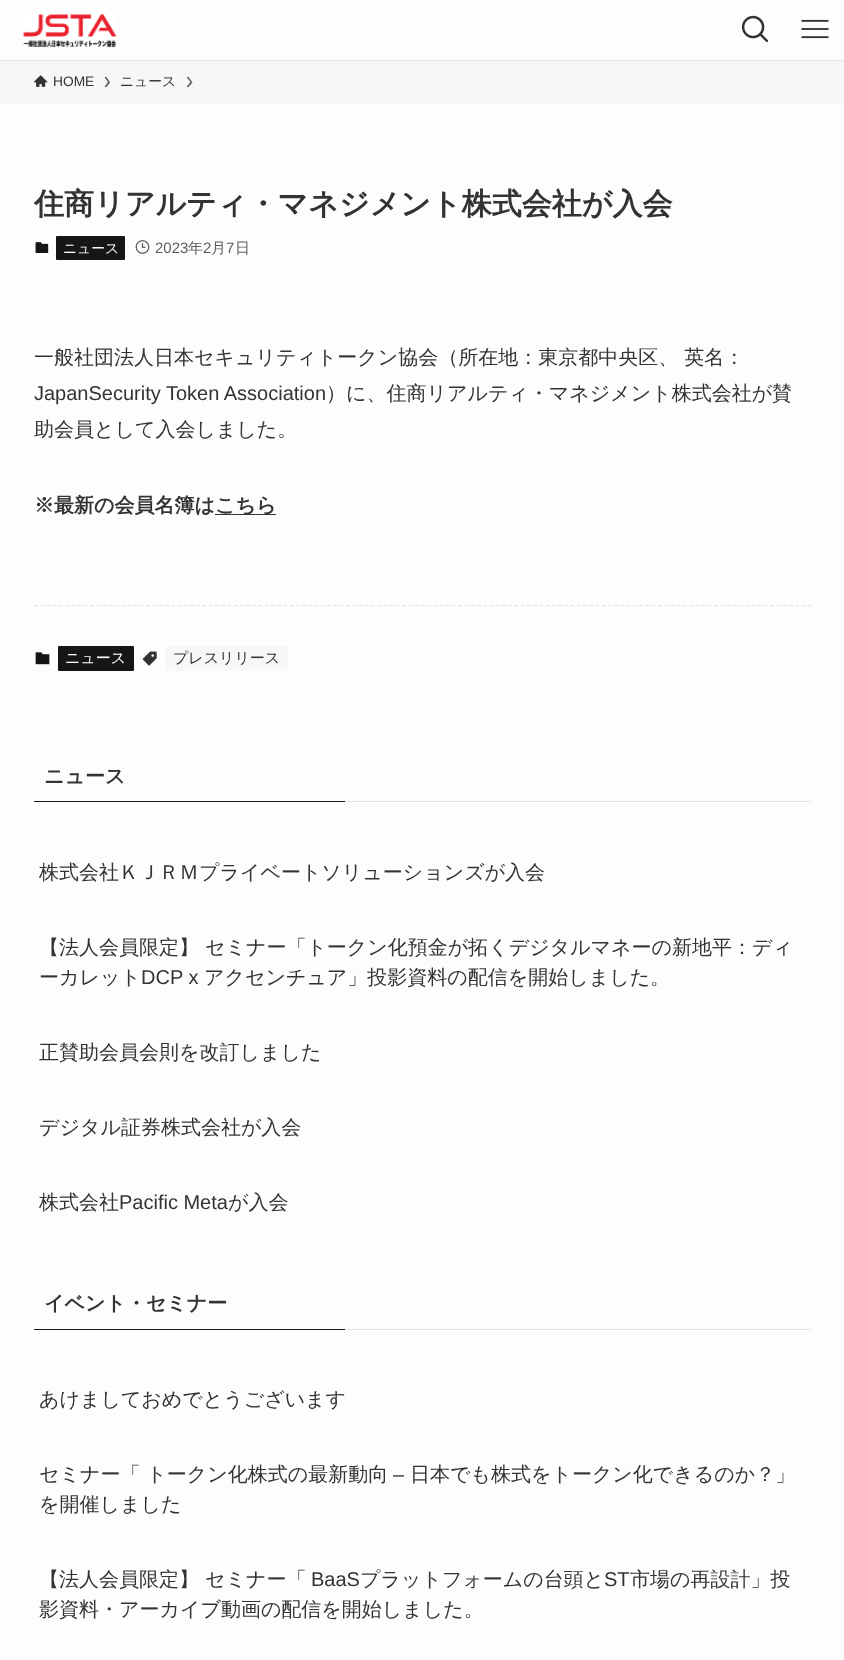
<svg xmlns="http://www.w3.org/2000/svg" width="844" height="1660" viewBox="0 0 844 1660">
  <style>
    .t1 { font: 13.75px Liberation Sans; fill: #333; }
    .t2 { font: 500 13.75px WenQuanYi Zen Hei; fill: #333; }
    .t3 { font: bold 30px WenQuanYi Zen Hei; fill: #333; }
    .t4 { font: 500 13.75px WenQuanYi Zen Hei; fill: #fff; }
    .t5 { font: 15px Liberation Sans; fill: #5b5b5b; }
    .t6 { font: 500 15px WenQuanYi Zen Hei; fill: #5b5b5b; }
    .t7 { font: 500 20px WenQuanYi Zen Hei; fill: #333; }
    .t8 { font: 20px Liberation Sans; fill: #333; }
    .t9 { font: bold 20px WenQuanYi Zen Hei; fill: #333; }
    .t10 { font: 500 15px WenQuanYi Zen Hei; fill: #fff; }
    .t11 { font: 500 15px WenQuanYi Zen Hei; fill: #333; }
  </style>
  <rect width="100%" height="100%" fill="#fdfdfd"/>
  <rect x="0" y="60" width="844" height="1" fill="#e4e4e4"/>
  <image x="23" y="13" width="94" height="35" href="images/1.png"/>
  <image x="741" y="15" width="28" height="28" href="images/2.png"/>
  <image x="801" y="19" width="28" height="20" href="images/3.png"/>
  <rect x="0" y="61" width="844" height="43" fill="#f7f7f7"/>
  <image x="33" y="75" width="15" height="12" href="images/4.png"/>
  <text x="53" y="86" class="t1">HOME</text>
  <path d="M106.5 77H104.5L108 82L104.5 87H106.5L110 82.5Z" fill="#5a5a5a"/>
  <text x="120" y="86" class="t2">ニュース</text>
  <path d="M188.5 77H186.5L190.5 82L186.5 87H188.5L192.5 82.5Z" fill="#5a5a5a"/>
  <text x="34" y="214" class="t3">住商リアルティ・マネジメント株式会社が入会</text>
  <image x="35" y="242" width="14" height="11" href="images/5.png"/>
  <rect x="56" y="236" width="69" height="24" rx="1" fill="#141618"/>
  <text x="63" y="253" class="t4">ニュース</text>
  <image x="135" y="240" width="15" height="14" href="images/6.png"/>
  <text x="155" y="253" class="t5">2023</text>
  <text x="188" y="253" class="t6">年</text>
  <text x="203" y="253" class="t5">2</text>
  <text x="211" y="253" class="t6">月</text>
  <text x="226" y="253" class="t5">7</text>
  <text x="235" y="253" class="t6">日</text>
  <text x="34" y="364" class="t7">一般社団法人日本セキュリティトークン協会（所在地：東京都中央区、 英名：</text>
  <text x="34" y="400" class="t8">JapanSecurity Token Association</text>
  <text x="326" y="400" class="t7">）に、住商リアルティ・マネジメント株式会社が賛</text>
  <text x="34" y="436" class="t7">助会員として入会しました。</text>
  <text x="34" y="512" class="t9">※最新の会員名簿は</text>
  <rect x="215" y="514" width="61" height="1" fill="#333"/>
  <text x="215" y="512" class="t9">こちら</text>
  <path d="M34 605.5H811" fill="none" stroke="#e2e2e2" stroke-width="1.2" stroke-dasharray="3.75 2.49"/>
  <image x="35" y="652" width="15" height="13" href="images/7.png"/>
  <rect x="58" y="646" width="76" height="25" rx="1" fill="#141618"/>
  <text x="65" y="663" class="t10">ニュース</text>
  <image x="142" y="651" width="15" height="15" href="images/8.png"/>
  <rect x="165" y="646" width="123" height="25" rx="1" fill="#f7f7f7"/>
  <text x="173" y="663" class="t11">プレスリリース</text>
  <text x="44" y="783" class="t9">ニュース</text>
  <rect x="34" y="801" width="311" height="1" fill="#141618"/>
  <rect x="345" y="801" width="466" height="1" fill="#e2e2e2"/>
  <text x="39" y="879" class="t7">株式会社ＫＪＲＭプライベートソリューションズが入会</text>
  <text x="39" y="954" class="t7">【法人会員限定】 セミナー「トークン化預金が拓くデジタルマネーの新地平：ディ</text>
  <text x="39" y="984" class="t7">ーカレット</text>
  <text x="141" y="984" class="t8">DCP x</text>
  <text x="204" y="984" class="t7">アクセンチュア」投影資料の配信を開始しました。</text>
  <text x="39" y="1059" class="t7">正賛助会員会則を改訂しました</text>
  <text x="39" y="1134" class="t7">デジタル証券株式会社が入会</text>
  <text x="39" y="1209" class="t7">株式会社</text>
  <text x="119" y="1209" class="t8">Pacific Meta</text>
  <text x="228" y="1209" class="t7">が入会</text>
  <text x="44" y="1310" class="t9">イベント・セミナー</text>
  <rect x="34" y="1329" width="311" height="1" fill="#141618"/>
  <rect x="345" y="1329" width="466" height="1" fill="#e2e2e2"/>
  <text x="39" y="1406" class="t7">あけましておめでとうございます</text>
  <text x="39" y="1481" class="t7">セミナー「 トークン化株式の最新動向</text>
  <text x="393" y="1481" class="t8">–</text>
  <text x="410" y="1481" class="t7">日本でも株式をトークン化できるのか？」</text>
  <text x="39" y="1511" class="t7">を開催しました</text>
  <text x="39" y="1586" class="t7">【法人会員限定】 セミナー「</text>
  <text x="311" y="1586" class="t8">BaaS</text>
  <text x="360" y="1586" class="t7">プラットフォームの台頭と</text>
  <text x="604" y="1586" class="t8">ST</text>
  <text x="630" y="1586" class="t7">市場の再設計」投</text>
  <text x="39" y="1616" class="t7">影資料・アーカイブ動画の配信を開始しました。</text>
</svg>
